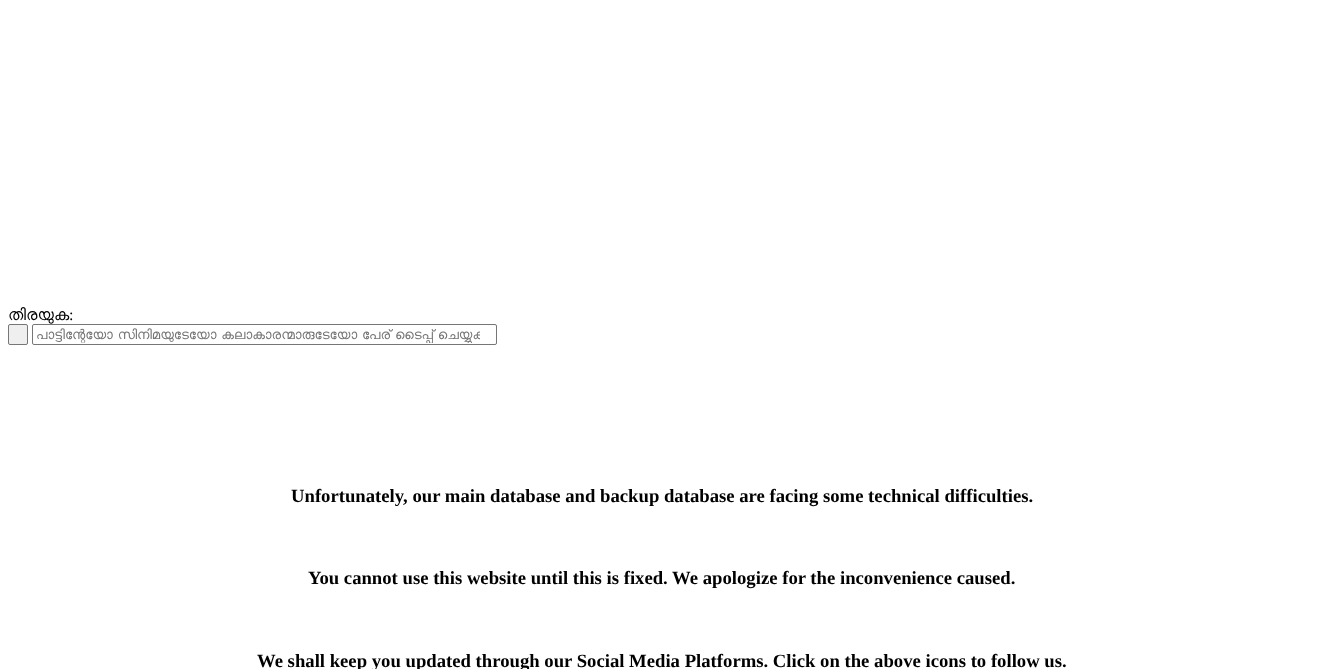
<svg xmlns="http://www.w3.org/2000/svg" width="1324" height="669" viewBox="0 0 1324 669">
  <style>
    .t1 { font: 16px FreeSans; fill: #000; }
    .t2 { font: 16px Liberation Serif; fill: #000; }
    .t3 { font: 13.35px FreeSans; fill: #757575; }
    .t4 { font: bold 18.7px Liberation Serif; fill: #000; }
  </style>
  <defs>
    <clipPath id="clip1"><rect x="36" y="327" width="444" height="16"/></clipPath>
  </defs>
  <rect width="100%" height="100%" fill="#fff"/>
  <text x="8" y="320" class="t1">തിരയുക</text>
  <text x="69" y="320" class="t2">:</text>
  <rect x="8.5" y="324.5" width="19" height="20" rx="1.5" fill="#efefef" stroke="#767676"/>
  <rect x="32.5" y="324.5" width="464" height="20" rx="1.5" fill="#fff" stroke="#767676"/>
  <g clip-path="url(#clip1)">
    <text x="36" y="339" word-spacing="-0.5" class="t3">പാട്ടിന്റേയോ സിനിമയുടേയോ കലാകാരന്മാരുടേയോ പേര് ടൈപ്പ് ചെയ്യുക</text>
  </g>
  <text x="291" y="502" class="t4">Unfortunately, our main database and backup database are facing some technical difficulties.</text>
  <text x="308" y="584" class="t4">You cannot use this website until this is fixed. We apologize for the inconvenience caused.</text>
  <text x="257" y="667" class="t4">We shall keep you updated through our Social Media Platforms. Click on the above icons to follow us.</text>
</svg>
